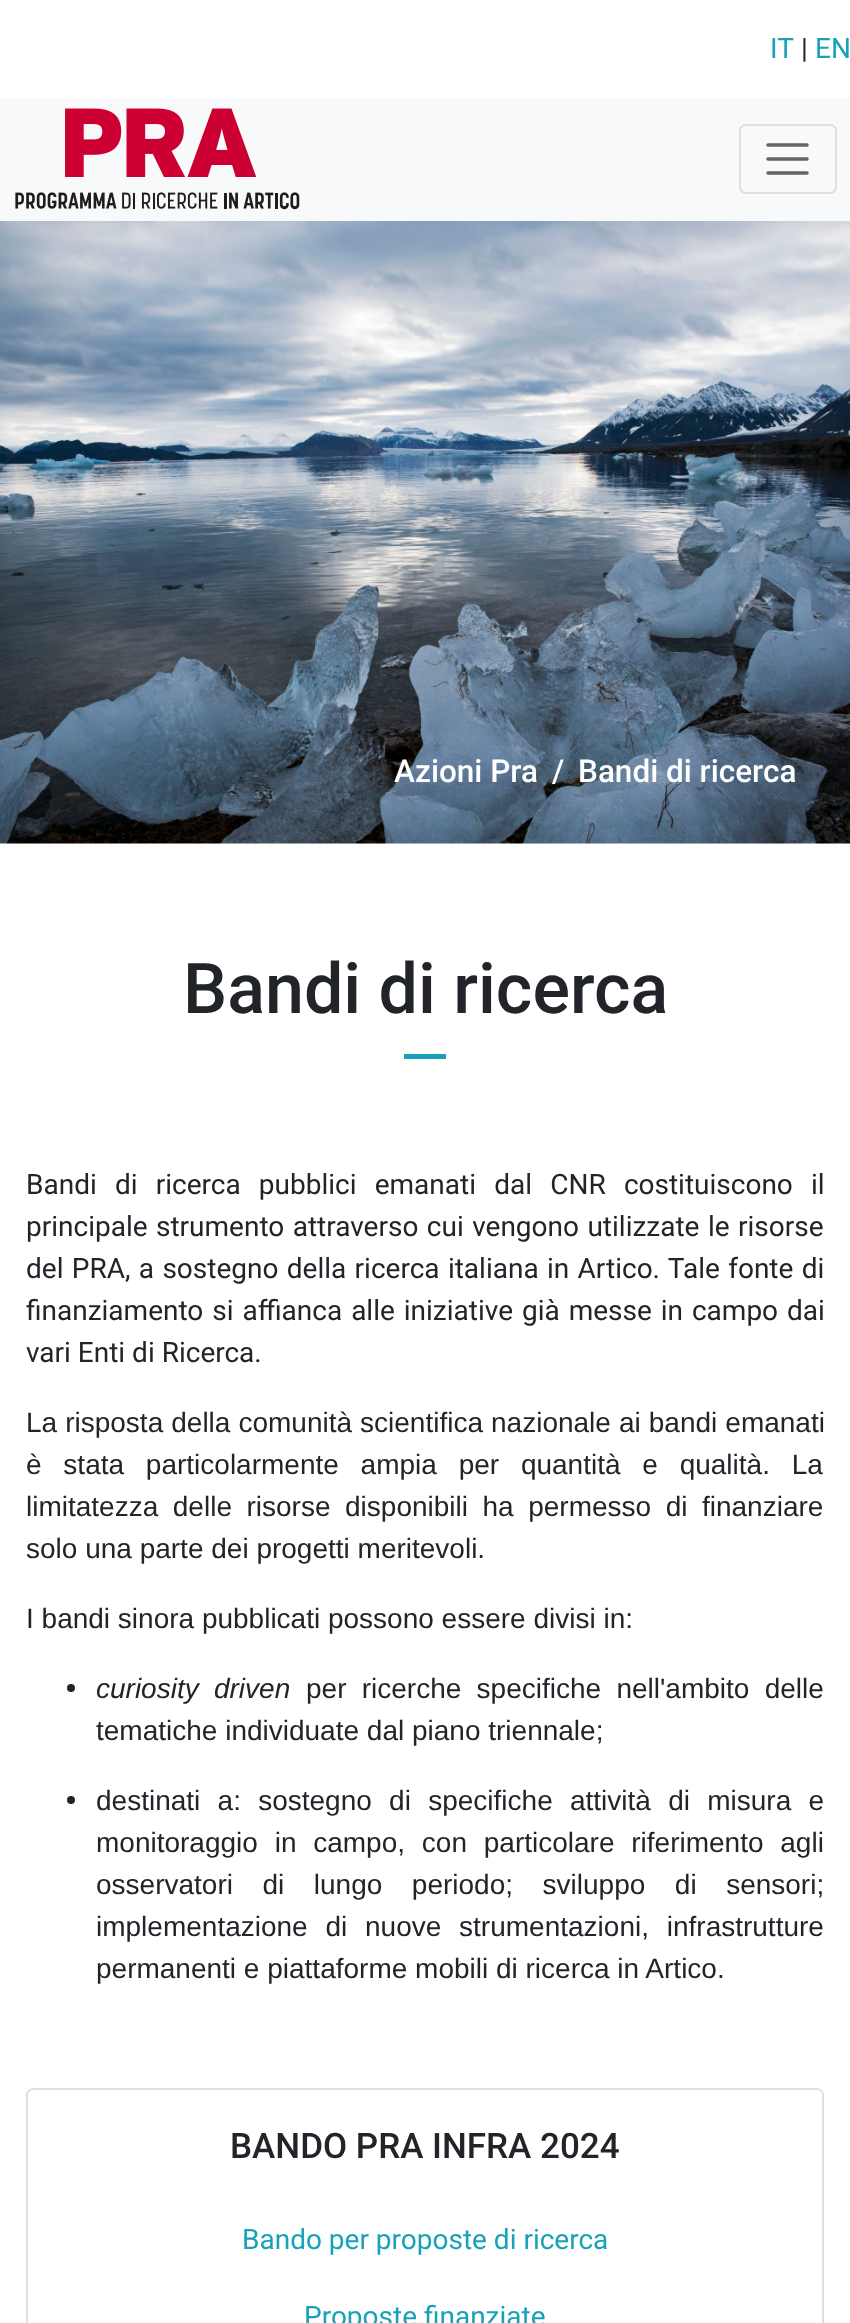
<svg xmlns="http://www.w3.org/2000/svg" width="850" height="2323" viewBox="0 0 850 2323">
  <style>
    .t1 { font: 28px Roboto; fill: #17a2b8; }
    .t2 { font: 28px Roboto; fill: #212529; }
    .t3 { font: 500 31.5px Roboto; fill: #fff; }
    .t4 { font: 500 70px Roboto; fill: #212529; }
    .t5 { font: 28px Liberation Sans; fill: #212529; }
    .t6 { font: italic 28px Liberation Sans; fill: #212529; }
    .t7 { font: 500 35px Roboto; fill: #212529; }
  </style>
  <rect width="100%" height="100%" fill="#fff"/>
  <text x="770" y="58" class="t1">IT</text>
  <text x="801" y="58" class="t2">|</text>
  <text x="815" y="58" class="t1">EN</text>
  <rect x="0" y="98" width="850" height="123" fill="#f8f9fa"/>
  <image x="15" y="108" width="285" height="102" href="images/1.png"/>
  <rect x="740" y="125" width="96" height="68" rx="6" fill="none" stroke="#dfe0e1" stroke-width="2"/>
  <path d="M768 145H807M768 159H807M768 173H807" fill="none" stroke="#636464" stroke-width="3.5" stroke-linecap="round"/>
  <image x="0" y="221" width="850" height="623" href="images/2.png"/>
  <text x="394" y="782" class="t3">Azioni Pra</text>
  <text x="552" y="782" class="t3">/</text>
  <text x="578" y="782" class="t3">Bandi di ricerca</text>
  <text x="183" y="1013" class="t4">Bandi di ricerca</text>
  <rect x="404" y="1054" width="42" height="5" fill="#17a2b8"/>
  <text x="26" y="1194" word-spacing="11.25" class="t2">Bandi di ricerca pubblici emanati dal CNR costituiscono il</text>
  <text x="26" y="1236" word-spacing="1.5" class="t2">principale strumento attraverso cui vengono utilizzate le risorse</text>
  <text x="26" y="1278" word-spacing="1.4" class="t2">del PRA, a sostegno della ricerca italiana in Artico. Tale fonte di</text>
  <text x="26" y="1320" word-spacing="2" class="t2">finanziamento si affianca alle iniziative già messe in campo dai</text>
  <text x="26" y="1362" class="t2">vari Enti di Ricerca.</text>
  <text x="26" y="1432" word-spacing="0.25" class="t5">La risposta della comunità scientifica nazionale ai bandi emanati</text>
  <text x="26" y="1474" word-spacing="14" class="t5">è stata particolarmente ampia per quantità e qualità. La</text>
  <text x="26" y="1516" word-spacing="6.75" class="t5">limitatezza delle risorse disponibili ha permesso di finanziare</text>
  <text x="26" y="1558" class="t5">solo una parte dei progetti meritevoli.</text>
  <text x="26" y="1628" class="t5">I bandi sinora pubblicati possono essere divisi in:</text>
  <circle cx="71" cy="1688" r="4" fill="#212529"/>
  <text x="96" y="1698" word-spacing="7.5" class="t6">curiosity driven</text>
  <text x="306" y="1698" word-spacing="7.5" class="t5">per ricerche specifiche nell'ambito delle</text>
  <text x="96" y="1740" class="t5">tematiche individuate dal piano triennale;</text>
  <circle cx="71" cy="1800" r="4" fill="#212529"/>
  <text x="96" y="1810" word-spacing="9.5" class="t5">destinati a: sostegno di specifiche attività di misura e</text>
  <text x="96" y="1852" word-spacing="9" class="t5">monitoraggio in campo, con particolare riferimento agli</text>
  <text x="96" y="1894" word-spacing="21.75" class="t5">osservatori di lungo periodo; sviluppo di sensori;</text>
  <text x="96" y="1936" word-spacing="10" class="t5">implementazione di nuove strumentazioni, infrastrutture</text>
  <text x="96" y="1978" class="t5">permanenti e piattaforme mobili di ricerca in Artico.</text>
  <rect x="27" y="2089" width="796" height="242" rx="6" fill="none" stroke="#dfdfdf" stroke-width="2"/>
  <text x="230" y="2158" class="t7">BANDO PRA INFRA 2024</text>
  <text x="242" y="2249" class="t1">Bando per proposte di ricerca</text>
  <text x="304" y="2326" class="t1">Proposte finanziate</text>
</svg>
